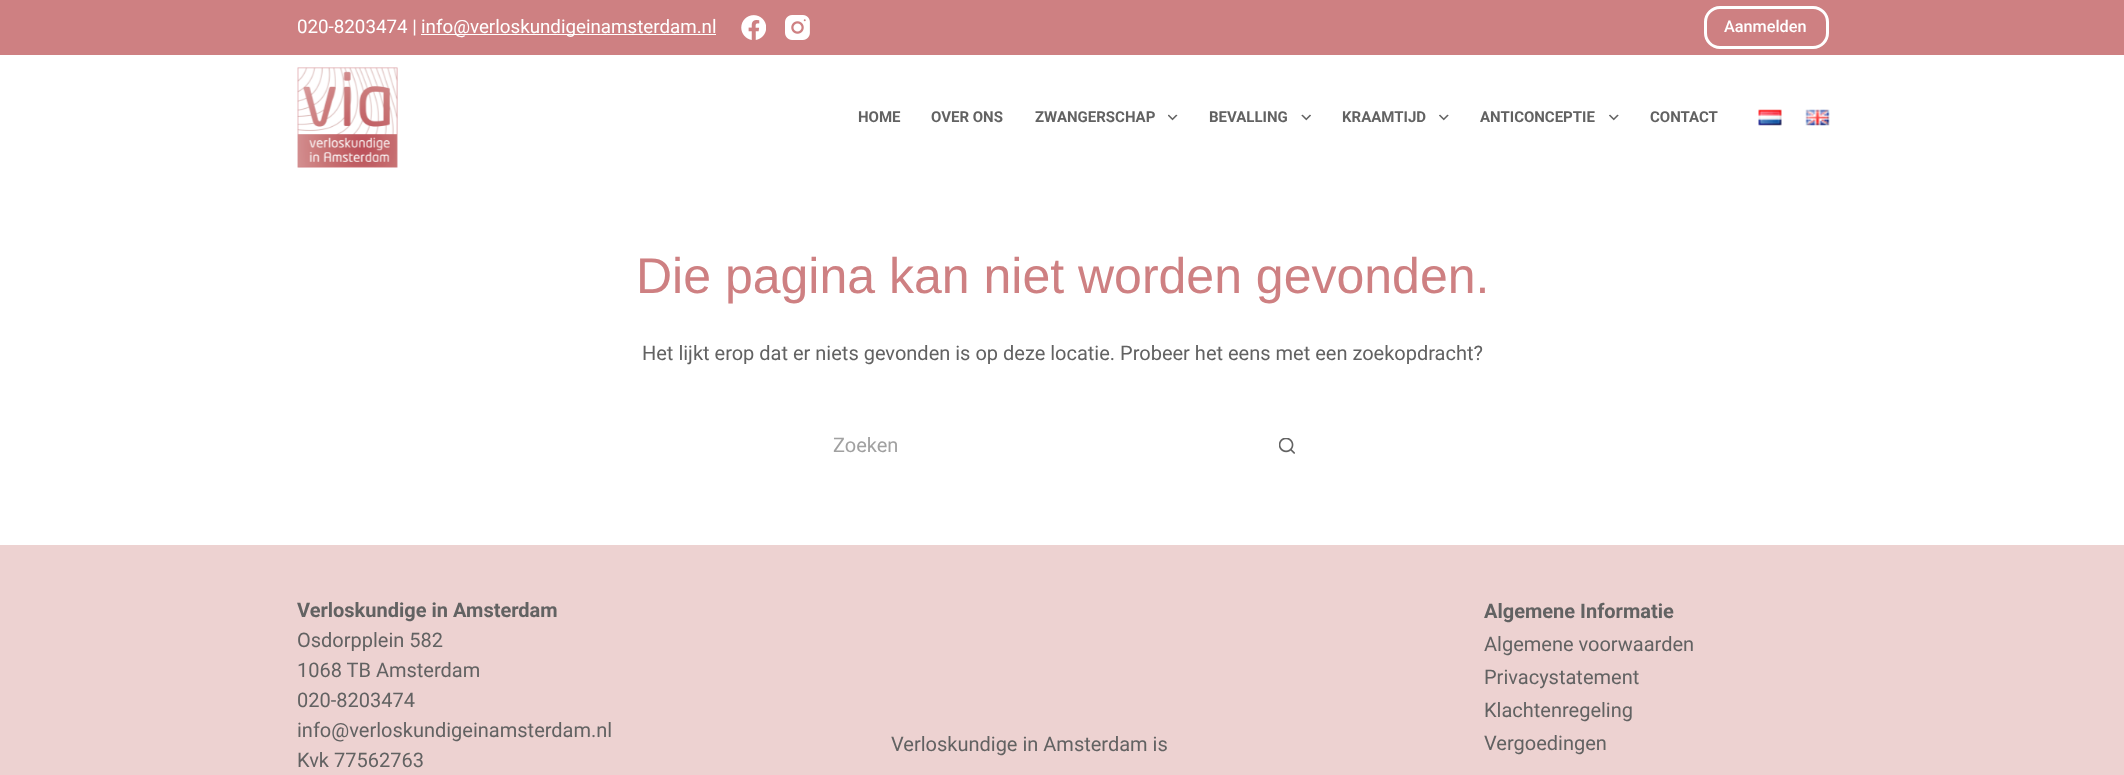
<svg xmlns="http://www.w3.org/2000/svg" width="2124" height="775" viewBox="0 0 2124 775">
  <style>
    .t1 { font: 18.75px Roboto; fill: #fff; }
    .t2 { font: 500 16.25px Roboto; fill: #fff; }
    .t3 { font: bold 15px Roboto; fill: #626262; }
    .t4 { font: 50px Liberation Sans; fill: #ce8082; }
    .t5 { font: 20px Roboto; fill: #626262; }
    .t6 { font: 20px Roboto; fill: #a1a1a1; }
    .t7 { font: bold 20px Roboto; fill: #626262; }
  </style>
  <rect width="100%" height="100%" fill="#fff"/>
  <rect x="0" y="0" width="2124" height="55" fill="#ce8082"/>
  <text x="297" y="33" class="t1">020-8203474 |</text>
  <rect x="421" y="34" width="295" height="1" fill="#fff"/>
  <text x="421" y="33" class="t1">info@verloskundigeinamsterdam.nl</text>
  <image x="741" y="15" width="25" height="25" href="images/1.png"/>
  <image x="785" y="15" width="25" height="25" href="images/2.png"/>
  <rect x="1705.5" y="7.5" width="122" height="40" rx="14.5" fill="none" stroke="#fff" stroke-width="3"/>
  <text x="1724" y="32" class="t2">Aanmelden</text>
  <image x="297" y="67" width="101" height="101" href="images/3.png"/>
  <text x="858" y="122" class="t3">HOME</text>
  <text x="931" y="122" class="t3">OVER ONS</text>
  <text x="1035" y="122" class="t3">ZWANGERSCHAP</text>
  <image x="1168" y="114" width="10" height="7" href="images/4.png"/>
  <text x="1209" y="122" class="t3">BEVALLING</text>
  <image x="1301" y="114" width="10" height="7" href="images/5.png"/>
  <text x="1342" y="122" class="t3">KRAAMTIJD</text>
  <image x="1439" y="114" width="10" height="7" href="images/6.png"/>
  <text x="1480" y="122" class="t3">ANTICONCEPTIE</text>
  <image x="1609" y="114" width="10" height="7" href="images/6.png"/>
  <text x="1650" y="122" class="t3">CONTACT</text>
  <image x="1758" y="109" width="24" height="17" href="images/7.png"/>
  <image x="1805" y="109" width="25" height="17" href="images/8.png"/>
  <text x="636" y="293" class="t4">Die pagina kan niet worden gevonden.</text>
  <text x="642" y="360" class="t5">Het lijkt erop dat er niets gevonden is op deze locatie. Probeer het eens met een zoekopdracht?</text>
  <text x="833" y="452" class="t6">Zoeken</text>
  <image x="1279" y="438" width="16" height="16" href="images/9.png"/>
  <rect x="0" y="545" width="2124" height="230" fill="#edd2d1"/>
  <text x="297" y="617" class="t7">Verloskundige in Amsterdam</text>
  <text x="297" y="647" class="t5">Osdorpplein 582</text>
  <text x="297" y="677" class="t5">1068 TB Amsterdam</text>
  <text x="297" y="707" class="t5">020-8203474</text>
  <text x="297" y="737" class="t5">info@verloskundigeinamsterdam.nl</text>
  <text x="297" y="767" class="t5">Kvk 77562763</text>
  <text x="891" y="751" class="t5">Verloskundige in Amsterdam is</text>
  <text x="1484" y="618" class="t7">Algemene Informatie</text>
  <text x="1484" y="651" class="t5">Algemene voorwaarden</text>
  <text x="1484" y="684" class="t5">Privacystatement</text>
  <text x="1484" y="717" class="t5">Klachtenregeling</text>
  <text x="1484" y="750" class="t5">Vergoedingen</text>
</svg>
